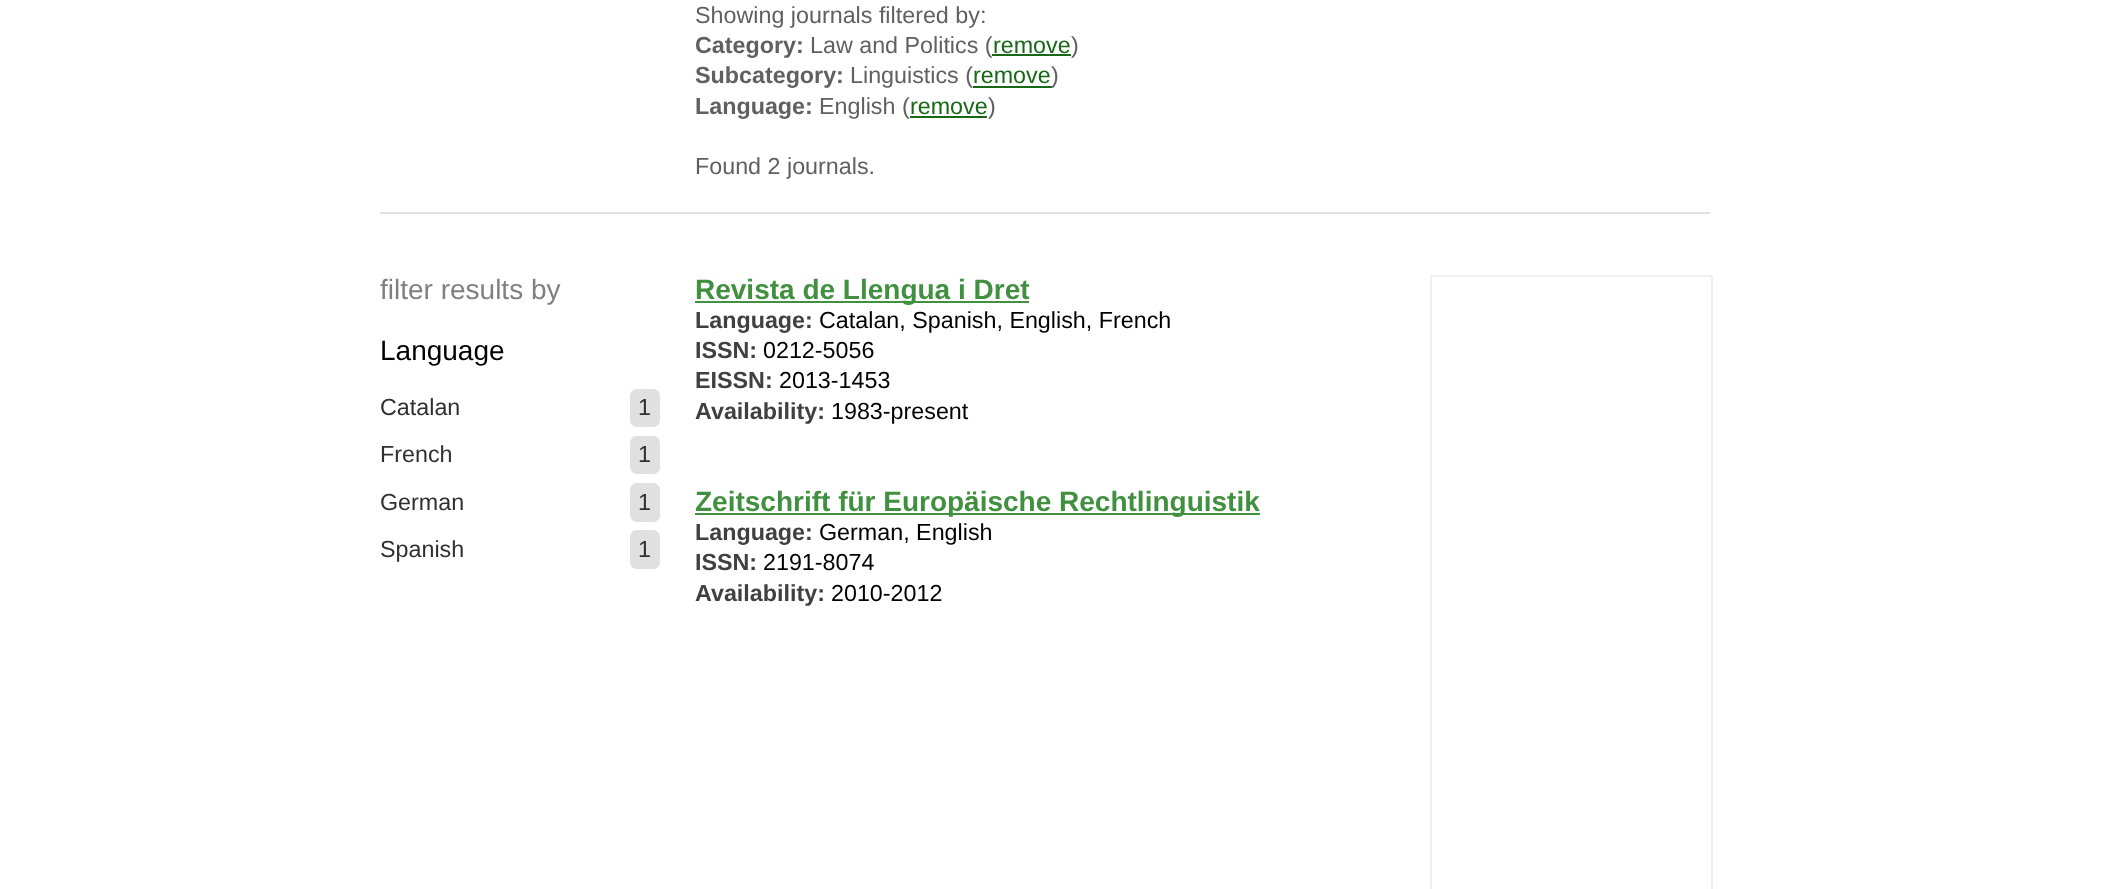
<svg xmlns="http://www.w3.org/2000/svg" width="2124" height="889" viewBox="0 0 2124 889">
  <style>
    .t1 { font: 23.3px Liberation Sans; fill: #606060; }
    .t2 { font: bold 23.3px Liberation Sans; fill: #606060; }
    .t3 { font: 23.3px Liberation Sans; fill: #186818; }
    .t4 { font: 28px Liberation Sans; fill: #808080; }
    .t5 { font: 28px Liberation Sans; fill: #000; }
    .t6 { font: 23.3px Liberation Sans; fill: #303030; }
    .t7 { font: bold 28px Liberation Sans; fill: #409040; }
    .t8 { font: bold 23.3px Liberation Sans; fill: #404040; }
    .t9 { font: 23.3px Liberation Sans; fill: #000; }
  </style>
  <rect width="100%" height="100%" fill="#fff"/>
  <rect x="380" y="212" width="1330" height="2" fill="#e0e0e0"/>
  <text x="695" y="23" class="t1">Showing journals filtered by:</text>
  <text x="695" y="53" class="t2">Category:</text>
  <text x="810" y="53" class="t1">Law and Politics (</text>
  <text x="993" y="53" class="t3">remove</text>
  <rect x="992" y="54" width="79" height="2" fill="#186818"/>
  <text x="1071" y="53" class="t1">)</text>
  <text x="695" y="83" class="t2">Subcategory:</text>
  <text x="850" y="83" class="t1">Linguistics (</text>
  <text x="973" y="83" class="t3">remove</text>
  <rect x="973" y="86" width="79" height="2" fill="#186818"/>
  <text x="1051" y="83" class="t1">)</text>
  <text x="695" y="114" class="t2">Language:</text>
  <text x="819" y="114" class="t1">English (</text>
  <text x="910" y="114" class="t3">remove</text>
  <rect x="910" y="116" width="77" height="2" fill="#186818"/>
  <text x="988" y="114" class="t1">)</text>
  <text x="695" y="174" class="t1">Found 2 journals.</text>
  <text x="380" y="299" class="t4">filter results by</text>
  <text x="380" y="360" class="t5">Language</text>
  <text x="380" y="415" class="t6">Catalan</text>
  <rect x="630" y="389" width="30" height="38" rx="7" fill="#e0e0e0"/>
  <text x="638" y="415" class="t6">1</text>
  <text x="380" y="462" class="t6">French</text>
  <rect x="630" y="436" width="30" height="38" rx="7" fill="#e0e0e0"/>
  <text x="638" y="462" class="t6">1</text>
  <text x="380" y="510" class="t6">German</text>
  <rect x="630" y="483" width="30" height="39" rx="7" fill="#e0e0e0"/>
  <text x="638" y="510" class="t6">1</text>
  <text x="380" y="557" class="t6">Spanish</text>
  <rect x="630" y="530" width="30" height="39" rx="7" fill="#e0e0e0"/>
  <text x="638" y="557" class="t6">1</text>
  <rect x="695" y="301" width="334" height="2" fill="#409040"/>
  <text x="695" y="299" class="t7">Revista de Llengua i Dret</text>
  <text x="695" y="328" class="t8">Language:</text>
  <text x="819" y="328" class="t9">Catalan, Spanish, English, French</text>
  <text x="695" y="358" class="t8">ISSN:</text>
  <text x="763" y="358" class="t9">0212-5056</text>
  <text x="695" y="388" class="t8">EISSN:</text>
  <text x="779" y="388" class="t9">2013-1453</text>
  <text x="695" y="419" class="t8">Availability:</text>
  <text x="831" y="419" class="t9">1983-present</text>
  <rect x="695" y="513" width="565" height="2" fill="#409040"/>
  <text x="695" y="511" class="t7">Zeitschrift für Europäische Rechtlinguistik</text>
  <text x="695" y="540" class="t8">Language:</text>
  <text x="819" y="540" class="t9">German, English</text>
  <text x="695" y="570" class="t8">ISSN:</text>
  <text x="763" y="570" class="t9">2191-8074</text>
  <text x="695" y="601" class="t8">Availability:</text>
  <text x="831" y="601" class="t9">2010-2012</text>
  <rect x="1431" y="276" width="281" height="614" fill="none" stroke="#f0f0f0" stroke-width="2"/>
</svg>
